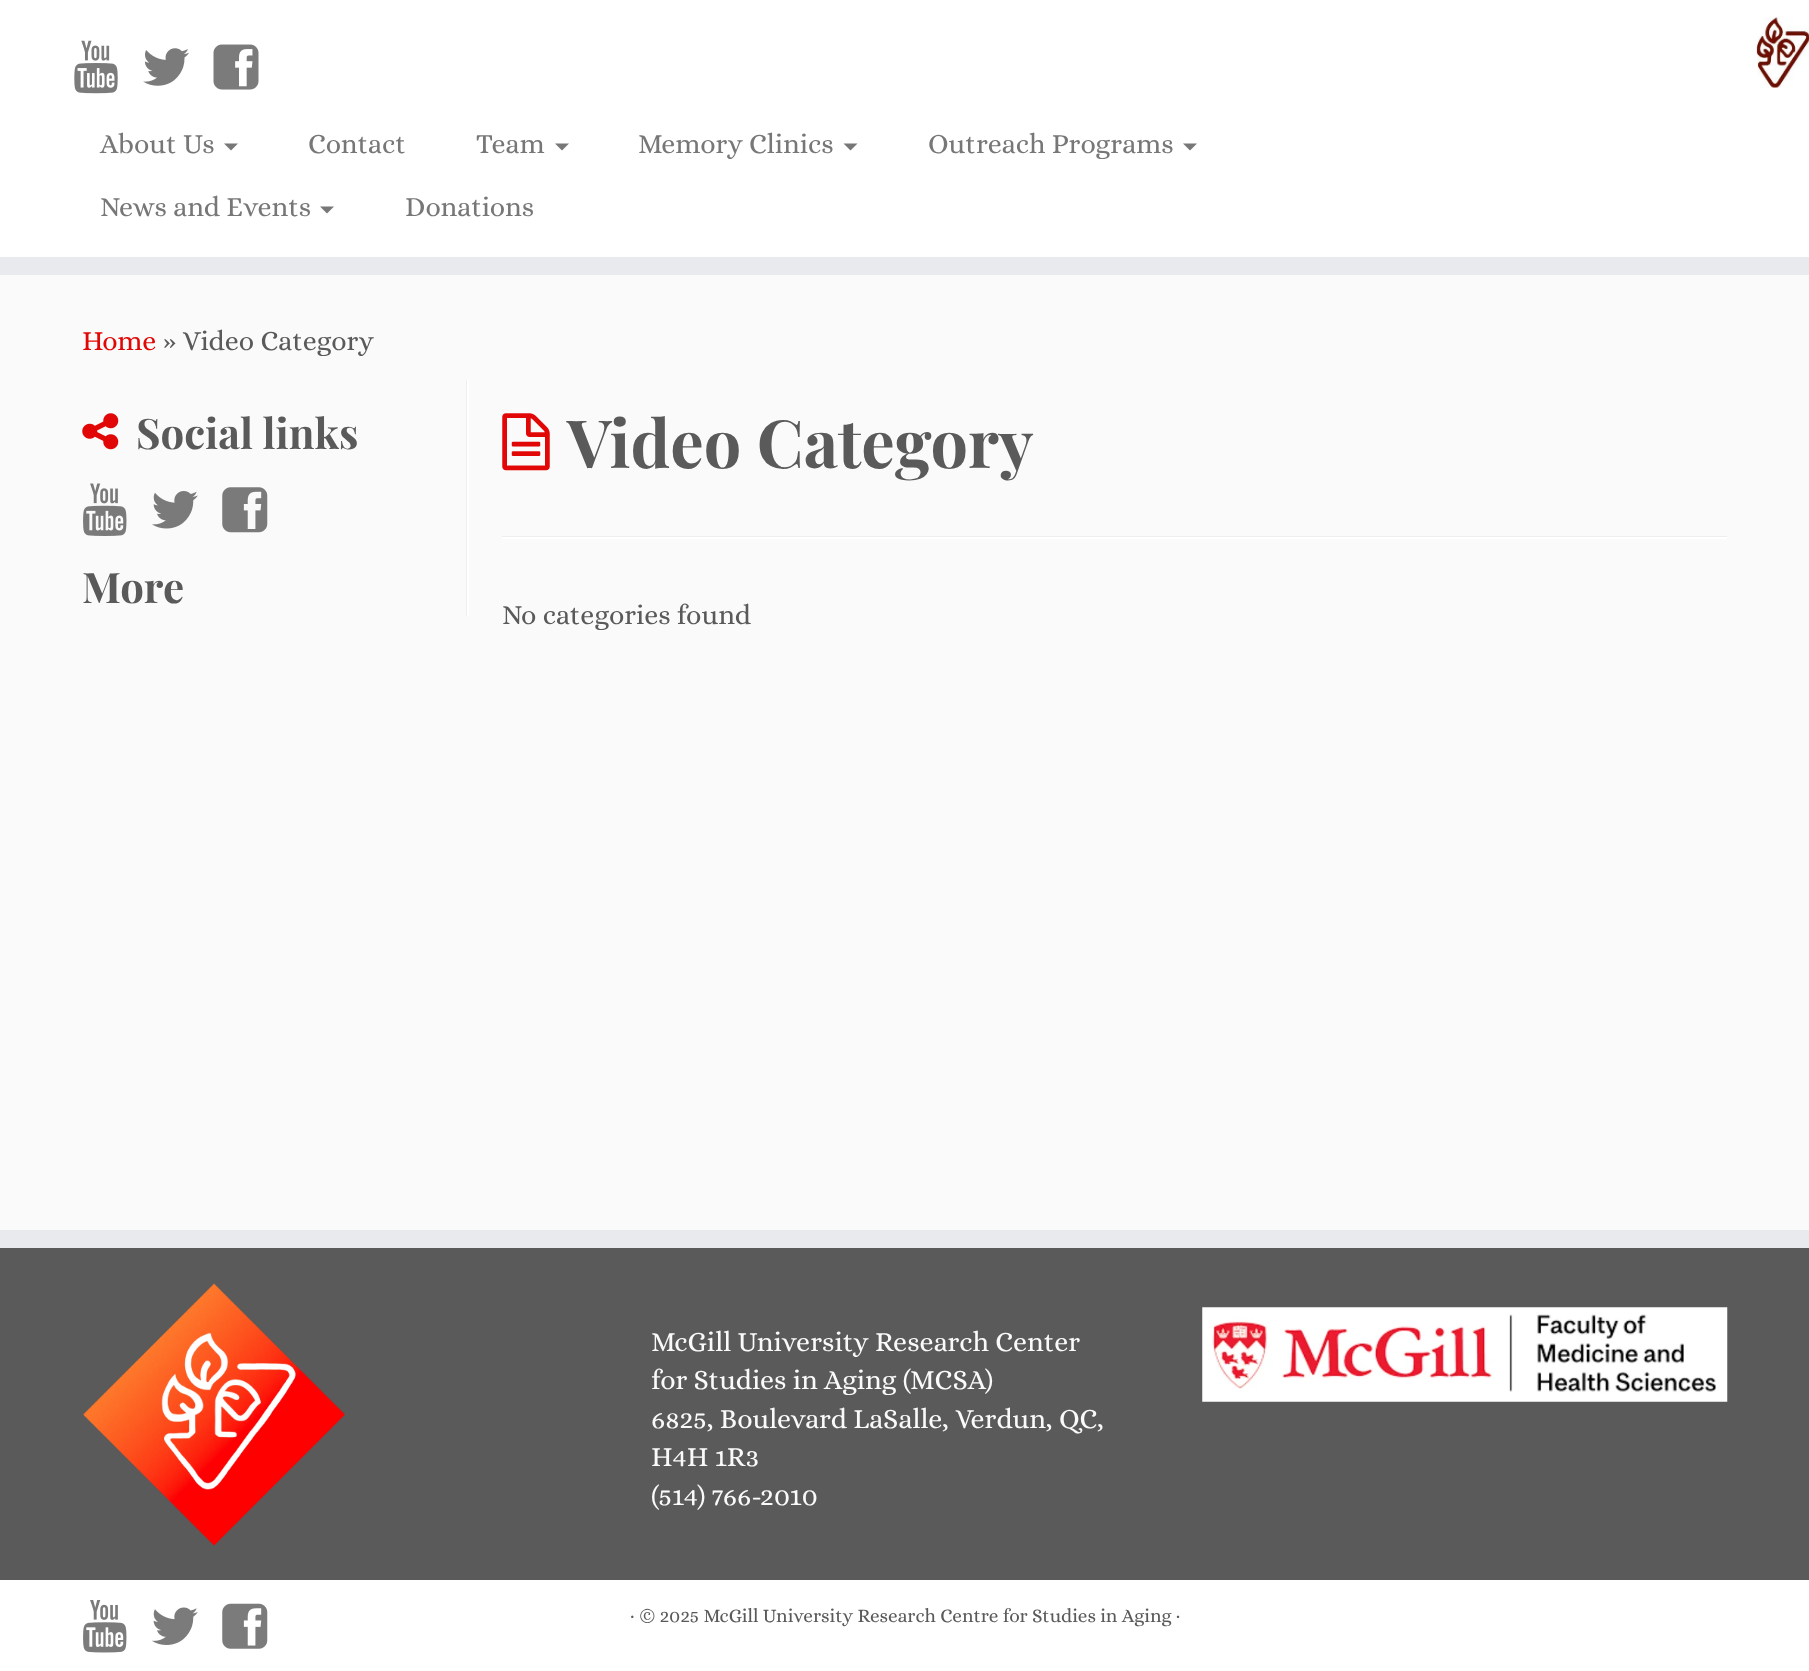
<svg xmlns="http://www.w3.org/2000/svg" width="1809" height="1671" viewBox="0 0 1809 1671">
  <style>
    .t1 { font: 28px Alice; fill: #777; }
    .t2 { font: 28px Alice; fill: #e10707; }
    .t3 { font: 28px Alice; fill: #5a5a5a; }
    .t4 { font: bold 42px Playfair Display; fill: #5a5a5a; }
    .t5 { font: bold 66.5px Playfair Display; fill: #5a5a5a; }
    .t6 { font: 28px Alice; fill: #fafafa; }
    .t7 { font: 19.25px Alice; fill: #5a5a5a; }
  </style>
  <rect width="100%" height="100%" fill="#fafafa"/>
  <rect x="0" y="0" width="1809" height="257" fill="#fff"/>
  <rect x="0" y="257" width="1809" height="18" fill="#e9eaee"/>
  <image x="1756" y="17" width="53" height="71" href="images/1.png"/>
  <image x="74" y="40" width="44" height="54" href="images/2.png"/>
  <image x="143" y="48" width="46" height="38" href="images/3.png"/>
  <image x="213" y="44" width="46" height="46" href="images/4.png"/>
  <text x="100" y="153" class="t1">About Us</text>
  <path d="M224 143.5H238L231 150.5Z" fill="#777"/>
  <text x="308" y="153" class="t1">Contact</text>
  <text x="476" y="153" class="t1">Team</text>
  <path d="M555 143.5H569L562 150.5Z" fill="#777"/>
  <text x="638" y="153" class="t1">Memory Clinics</text>
  <path d="M843.5 143.5H857.5L850.5 150.5Z" fill="#777"/>
  <text x="928" y="153" class="t1">Outreach Programs</text>
  <path d="M1183 143.5H1197L1190 150.5Z" fill="#777"/>
  <text x="100" y="216" class="t1">News and Events</text>
  <path d="M320 206.5H334L327 213.5Z" fill="#777"/>
  <text x="405" y="216" class="t1">Donations</text>
  <text x="82" y="350" class="t2">Home</text>
  <text x="163" y="350" class="t3">» Video Category</text>
  <rect x="466" y="380" width="1" height="236" fill="#eee"/>
  <image x="82" y="413" width="37" height="37" href="images/5.png"/>
  <text x="136" y="449" class="t4">Social links</text>
  <image x="83" y="483" width="44" height="53" href="images/6.png"/>
  <image x="152" y="491" width="46" height="38" href="images/7.png"/>
  <image x="222" y="487" width="46" height="46" href="images/8.png"/>
  <rect x="467" y="380" width="2" height="236" fill="#fff"/>
  <text x="82" y="603" class="t4">More</text>
  <image x="502" y="413" width="48" height="58" href="images/9.png"/>
  <text x="567" y="468" class="t5">Video Category</text>
  <rect x="502" y="536" width="1225" height="1" fill="#eee"/>
  <rect x="502" y="537" width="1225" height="2" fill="#fff"/>
  <text x="502" y="624" class="t3">No categories found</text>
  <rect x="0" y="1248" width="1809" height="332" fill="#5a5a5a"/>
  <rect x="0" y="1230" width="1809" height="18" fill="#e9eaee"/>
  <image x="83" y="1283" width="262" height="263" href="images/10.png"/>
  <text x="651" y="1351" class="t6">McGill University Research Center</text>
  <text x="651" y="1389" class="t6">for Studies in Aging (MCSA)</text>
  <text x="651" y="1428" class="t6">6825, Boulevard LaSalle, Verdun, QC,</text>
  <text x="651" y="1466" class="t6">H4H 1R3</text>
  <text x="651" y="1505" class="t6">(514) 766-2010</text>
  <image x="1202" y="1307" width="526" height="95" href="images/11.png"/>
  <rect x="0" y="1580" width="1809" height="91" fill="#fff"/>
  <image x="83" y="1600" width="44" height="53" href="images/12.png"/>
  <image x="152" y="1607" width="46" height="38" href="images/13.png"/>
  <image x="222" y="1603" width="46" height="46" href="images/14.png"/>
  <text x="630" y="1622" class="t7">· © 2025 McGill University Research Centre for Studies in Aging ·</text>
</svg>
